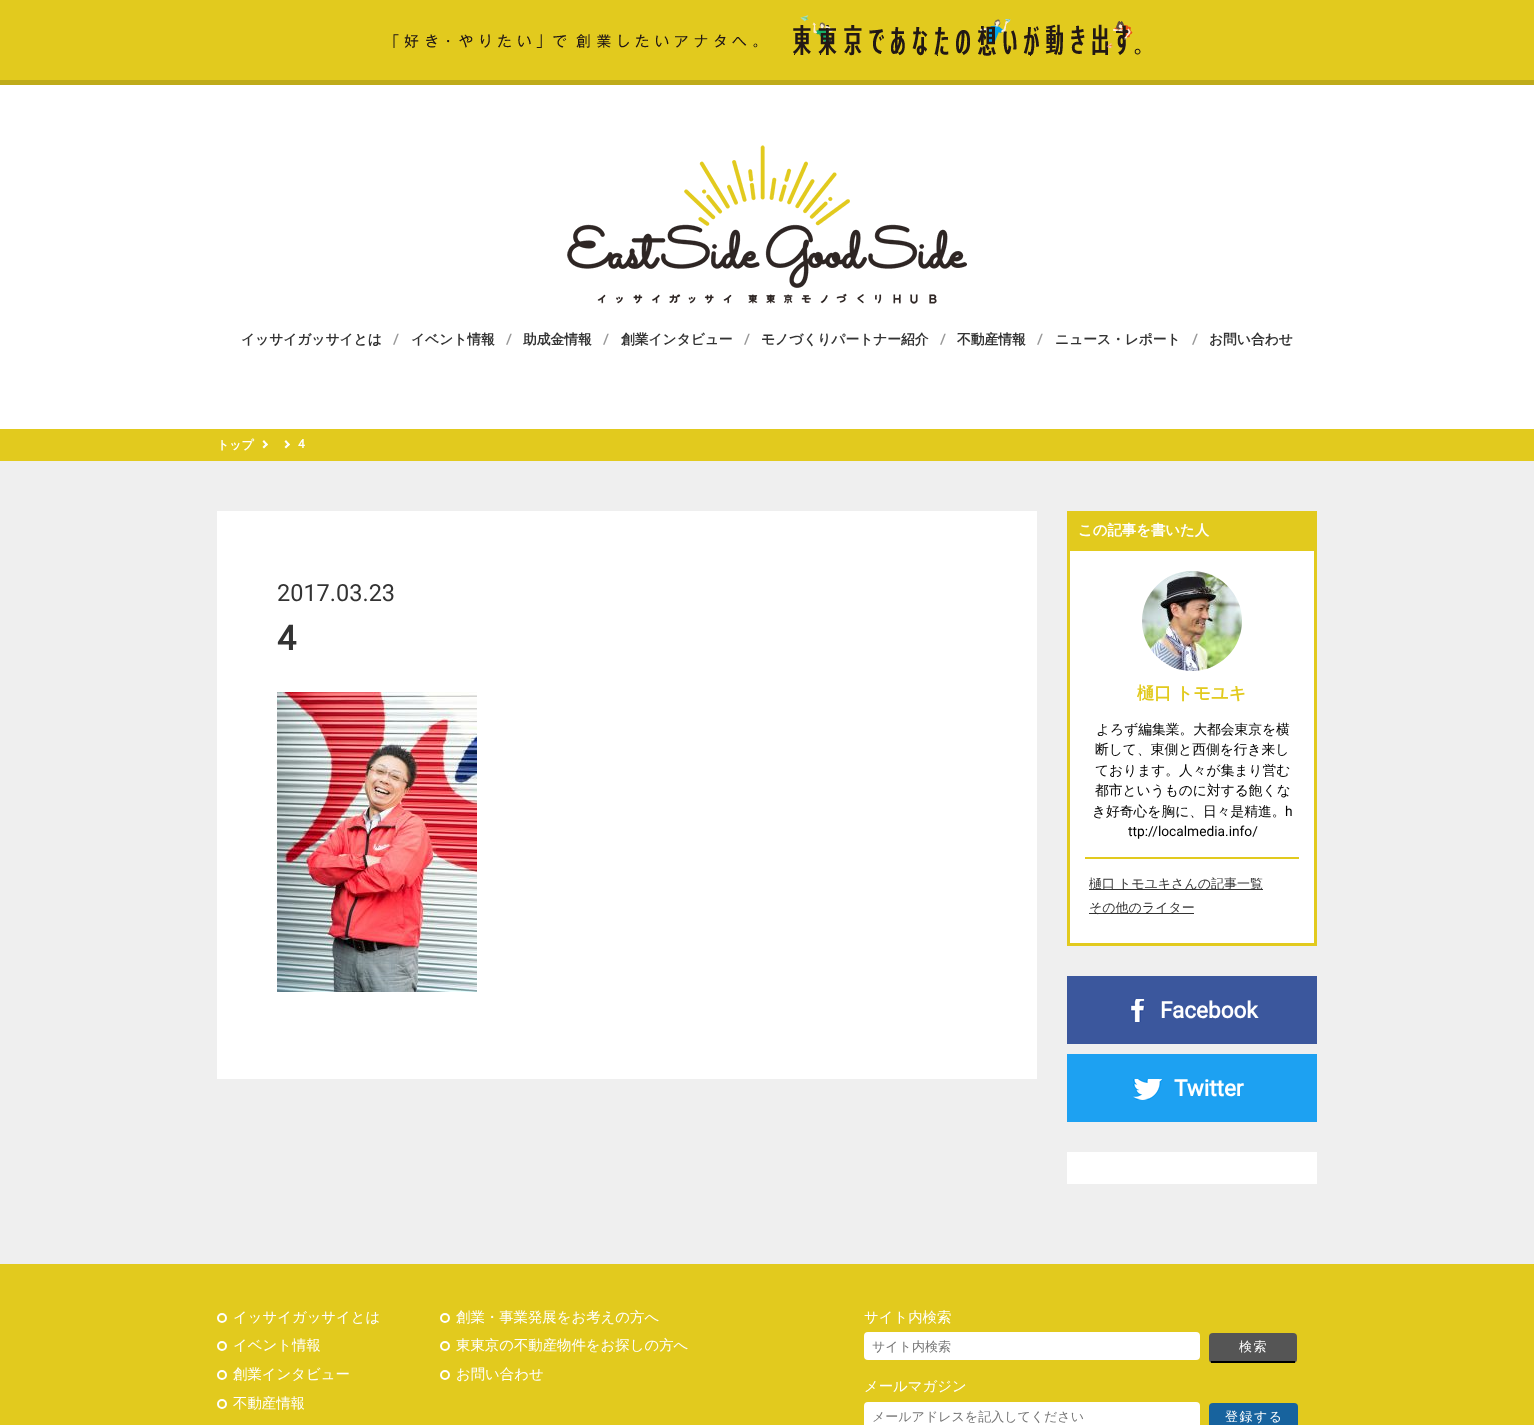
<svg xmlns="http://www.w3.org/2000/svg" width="1534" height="1425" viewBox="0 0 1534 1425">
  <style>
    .t1 { font: bold 13.75px WenQuanYi Zen Hei; fill: #333; }
    .t2 { font: bold 13.75px Roboto; fill: #999; }
    .t3 { font: bold 12px WenQuanYi Zen Hei; fill: #fff; }
    .t4 { font: bold 12px Roboto; fill: #fff; }
    .t5 { font: 23.5px Roboto; fill: #333; }
    .t6 { font: bold 34px Roboto; fill: #333; }
    .t7 { font: bold 14.4px WenQuanYi Zen Hei; fill: #fff; }
    .t8 { font: bold 17.25px WenQuanYi Zen Hei; fill: #e2ca1e; }
    .t9 { font: 500 13.75px WenQuanYi Zen Hei; fill: #000; }
    .t10 { font: 13.75px Roboto; fill: #000; }
    .t11 { font: 500 13px WenQuanYi Zen Hei; fill: #333; }
    .t12 { font: bold 22.5px Roboto; fill: #fff; }
    .t13 { font: 500 14.4px WenQuanYi Zen Hei; fill: #fff; }
    .t14 { font: 500 13px WenQuanYi Zen Hei; fill: #757575; }
    .t15 { font: 500 13px WenQuanYi Zen Hei; letter-spacing: 1.5px; fill: #fff; }
  </style>
  <rect width="100%" height="100%" fill="#e2ca1e"/>
  <rect x="0" y="80" width="1534" height="5" fill="#bfab1a"/>
  <image x="393" y="15" width="748" height="41" href="images/1.png"/>
  <rect x="0" y="85" width="1534" height="344" fill="#fff"/>
  <image x="567" y="145" width="400" height="159" href="images/2.png"/>
  <text x="241" y="344" class="t1">イッサイガッサイとは</text>
  <text x="393" y="344" class="t2">/</text>
  <text x="411" y="344" class="t1">イベント情報</text>
  <text x="506" y="344" class="t2">/</text>
  <text x="523" y="344" class="t1">助成金情報</text>
  <text x="603" y="344" class="t2">/</text>
  <text x="621" y="344" class="t1">創業インタビュー</text>
  <text x="744" y="344" class="t2">/</text>
  <text x="761" y="344" class="t1">モノづくりパートナー紹介</text>
  <text x="940" y="344" class="t2">/</text>
  <text x="957" y="344" class="t1">不動産情報</text>
  <text x="1037" y="344" class="t2">/</text>
  <text x="1055" y="344" class="t1">ニュース・レポート</text>
  <text x="1192" y="344" class="t2">/</text>
  <text x="1209" y="344" class="t1">お問い合わせ</text>
  <rect x="0" y="461" width="1534" height="803" fill="#efefef"/>
  <text x="217" y="449" class="t3">トップ</text>
  <path d="M264 440L268 444.5L266.5 446L262.5 441.5Z" fill="#fff"/>
  <path d="M266.5 443L268 444.5L264 448.5L262.5 447Z" fill="#fff"/>
  <path d="M286 440L290 444.5L288.5 446L284.5 441.5Z" fill="#fff"/>
  <path d="M288.5 443L290 444.5L286 448.5L284.5 447Z" fill="#fff"/>
  <text x="298" y="448" class="t4">4</text>
  <rect x="217" y="511" width="820" height="568" fill="#fff"/>
  <text x="277" y="601" class="t5">2017.03.23</text>
  <text x="277" y="650" class="t6">4</text>
  <image x="277" y="692" width="200" height="300" href="images/3.png"/>
  <rect x="1070" y="551" width="244" height="392" fill="#fff"/>
  <rect x="1068.5" y="512.5" width="247" height="432" fill="none" stroke="#e2ca1e" stroke-width="3"/>
  <rect x="1070" y="514" width="244" height="37" fill="#e2ca1e"/>
  <text x="1078" y="535" class="t7">この記事を書いた人</text>
  <image x="1142" y="571" width="100" height="100" href="images/4.png"/>
  <text x="1137" y="699" word-spacing="-1" class="t8">樋口 トモユキ</text>
  <text x="1096" y="734" class="t9">よろず編集業。大都会東京を横</text>
  <text x="1095" y="754" class="t9">断して、東側と西側を行き来し</text>
  <text x="1095" y="775" class="t9">ております。人々が集まり営む</text>
  <text x="1095" y="795" class="t9">都市というものに対する飽くな</text>
  <text x="1092" y="816" class="t9">き好奇心を胸に、日々是精進。</text>
  <text x="1285" y="816" class="t10">h</text>
  <text x="1128" y="836" class="t10">ttp://localmedia.info/</text>
  <rect x="1085" y="857" width="214" height="2" fill="#e2ca1e"/>
  <rect x="1089" y="889" width="174" height="1" fill="#333"/>
  <text x="1089" y="888" word-spacing="-1" class="t11">樋口 トモユキさんの記事一覧</text>
  <rect x="1089" y="913" width="105" height="1" fill="#333"/>
  <text x="1089" y="912" class="t11">その他のライター</text>
  <rect x="1067" y="976" width="250" height="68" fill="#3b579d"/>
  <image x="1130" y="999" width="15" height="23" href="images/5.png"/>
  <text x="1160" y="1018" class="t12">Facebook</text>
  <rect x="1067" y="1054" width="250" height="68" fill="#1da1f2"/>
  <image x="1133" y="1079" width="30" height="21" href="images/6.png"/>
  <text x="1174" y="1096" class="t12">Twitter</text>
  <rect x="1067" y="1152" width="250" height="32" fill="#fff"/>
  <circle cx="222" cy="1318" r="4" fill="none" stroke="#fff" stroke-width="2"/>
  <text x="233" y="1322" class="t13">イッサイガッサイとは</text>
  <circle cx="222" cy="1346" r="4" fill="none" stroke="#fff" stroke-width="2"/>
  <text x="233" y="1350" class="t13">イベント情報</text>
  <circle cx="222" cy="1375" r="4" fill="none" stroke="#fff" stroke-width="2"/>
  <text x="233" y="1379" class="t13">創業インタビュー</text>
  <circle cx="222" cy="1404" r="4" fill="none" stroke="#fff" stroke-width="2"/>
  <text x="233" y="1408" class="t13">不動産情報</text>
  <circle cx="445" cy="1318" r="4" fill="none" stroke="#fff" stroke-width="2"/>
  <text x="456" y="1322" class="t13">創業・事業発展をお考えの方へ</text>
  <circle cx="445" cy="1346" r="4" fill="none" stroke="#fff" stroke-width="2"/>
  <text x="456" y="1350" class="t13">東東京の不動産物件をお探しの方へ</text>
  <circle cx="445" cy="1375" r="4" fill="none" stroke="#fff" stroke-width="2"/>
  <text x="456" y="1379" class="t13">お問い合わせ</text>
  <text x="864" y="1322" class="t13">サイト内検索</text>
  <rect x="864" y="1332" width="336" height="28" rx="4" fill="#fff"/>
  <text x="872" y="1351" class="t14">サイト内検索</text>
  <rect x="1209" y="1333" width="88" height="30" rx="4" fill="#555"/>
  <rect x="1211" y="1361" width="84" height="2" fill="#000"/>
  <text x="1239" y="1351" class="t15">検索</text>
  <text x="864" y="1391" class="t13">メールマガジン</text>
  <rect x="864" y="1402" width="336" height="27" rx="4" fill="#fff"/>
  <text x="872" y="1421" class="t14">メールアドレスを記入してください</text>
  <rect x="1209" y="1403" width="89" height="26" rx="4" fill="#17639e"/>
  <text x="1225" y="1421" class="t15">登録する</text>
</svg>
